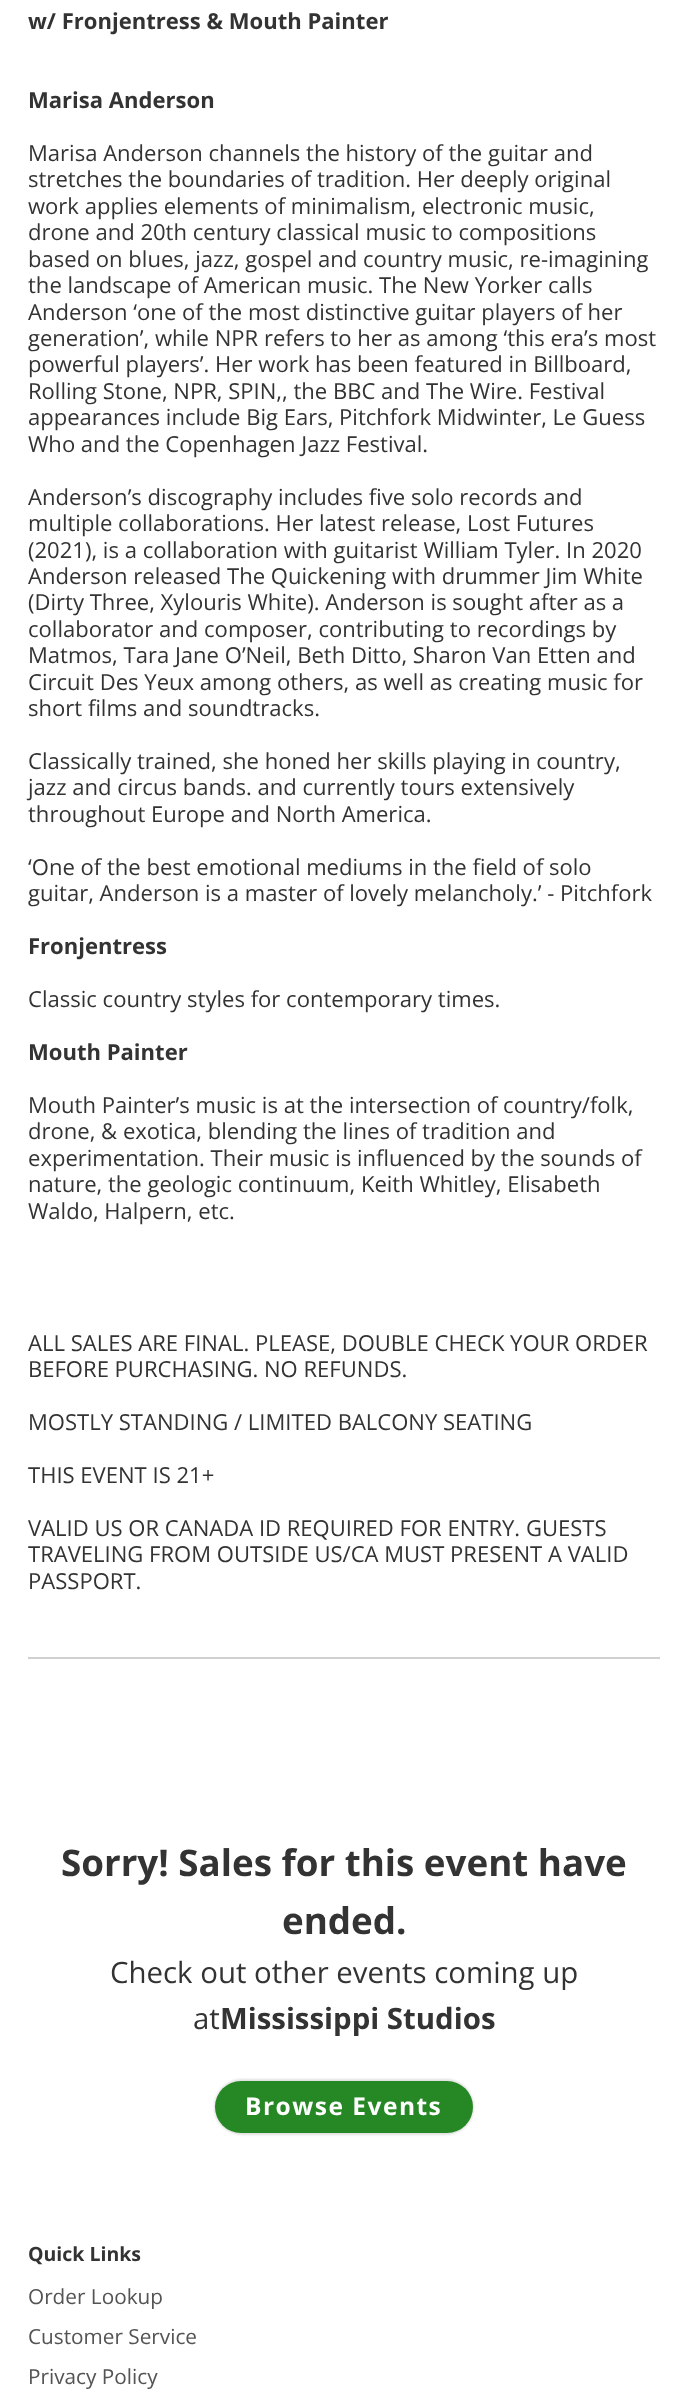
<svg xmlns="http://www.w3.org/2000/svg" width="687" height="2395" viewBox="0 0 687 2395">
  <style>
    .t1 { font: bold 22.05px Open Sans; fill: #333; }
    .t2 { font: 22.05px Open Sans; fill: #333; }
    .t3 { font: bold 36.75px Open Sans; fill: #333; }
    .t4 { font: 29.4px Open Sans; fill: #333; }
    .t5 { font: bold 29.4px Open Sans; fill: #333; }
    .t6 { font: bold 24.5px Open Sans; letter-spacing: 1.5px; fill: #fff; }
    .t7 { font: bold 19.5px Open Sans; fill: #333; }
    .t8 { font: 20.75px Open Sans; fill: #545454; }
  </style>
  <rect width="100%" height="100%" fill="#fff"/>
  <text x="28" y="29" class="t1">w/ Fronjentress &amp; Mouth Painter</text>
  <text x="28" y="108" class="t1">Marisa Anderson</text>
  <text x="28" y="161" class="t2">Marisa Anderson channels the history of the guitar and</text>
  <text x="28" y="187" class="t2">stretches the boundaries of tradition. Her deeply original</text>
  <text x="28" y="214" class="t2">work applies elements of minimalism, electronic music,</text>
  <text x="28" y="240" class="t2">drone and 20th century classical music to compositions</text>
  <text x="28" y="267" class="t2">based on blues, jazz, gospel and country music, re-imagining</text>
  <text x="28" y="293" class="t2">the landscape of American music. The New Yorker calls</text>
  <text x="28" y="320" class="t2">Anderson ‘one of the most distinctive guitar players of her</text>
  <text x="28" y="346" class="t2">generation’, while NPR refers to her as among ‘this era’s most</text>
  <text x="28" y="372" class="t2">powerful players’. Her work has been featured in Billboard,</text>
  <text x="28" y="399" class="t2">Rolling Stone, NPR, SPIN,, the BBC and The Wire. Festival</text>
  <text x="28" y="425" class="t2">appearances include Big Ears, Pitchfork Midwinter, Le Guess</text>
  <text x="28" y="452" class="t2">Who and the Copenhagen Jazz Festival.</text>
  <text x="28" y="505" class="t2">Anderson’s discography includes five solo records and</text>
  <text x="28" y="531" class="t2">multiple collaborations. Her latest release, Lost Futures</text>
  <text x="28" y="558" class="t2">(2021), is a collaboration with guitarist William Tyler. In 2020</text>
  <text x="28" y="584" class="t2">Anderson released The Quickening with drummer Jim White</text>
  <text x="28" y="610" class="t2">(Dirty Three, Xylouris White). Anderson is sought after as a</text>
  <text x="28" y="637" class="t2">collaborator and composer, contributing to recordings by</text>
  <text x="28" y="663" class="t2">Matmos, Tara Jane O’Neil, Beth Ditto, Sharon Van Etten and</text>
  <text x="28" y="690" class="t2">Circuit Des Yeux among others, as well as creating music for</text>
  <text x="28" y="716" class="t2">short films and soundtracks.</text>
  <text x="28" y="769" class="t2">Classically trained, she honed her skills playing in country,</text>
  <text x="28" y="795" class="t2">jazz and circus bands. and currently tours extensively</text>
  <text x="28" y="822" class="t2">throughout Europe and North America.</text>
  <text x="28" y="875" class="t2">‘One of the best emotional mediums in the field of solo</text>
  <text x="28" y="901" class="t2">guitar, Anderson is a master of lovely melancholy.’ - Pitchfork</text>
  <text x="28" y="954" class="t1">Fronjentress</text>
  <text x="28" y="1007" class="t2">Classic country styles for contemporary times.</text>
  <text x="28" y="1060" class="t1">Mouth Painter</text>
  <text x="28" y="1113" class="t2">Mouth Painter’s music is at the intersection of country/folk,</text>
  <text x="28" y="1139" class="t2">drone, &amp; exotica, blending the lines of tradition and</text>
  <text x="28" y="1166" class="t2">experimentation. Their music is influenced by the sounds of</text>
  <text x="28" y="1192" class="t2">nature, the geologic continuum, Keith Whitley, Elisabeth</text>
  <text x="28" y="1219" class="t2">Waldo, Halpern, etc.</text>
  <text x="28" y="1351" class="t2">ALL SALES ARE FINAL. PLEASE, DOUBLE CHECK YOUR ORDER</text>
  <text x="28" y="1377" class="t2">BEFORE PURCHASING. NO REFUNDS.</text>
  <text x="28" y="1430" class="t2">MOSTLY STANDING / LIMITED BALCONY SEATING</text>
  <text x="28" y="1483" class="t2">THIS EVENT IS 21+</text>
  <text x="28" y="1536" class="t2">VALID US OR CANADA ID REQUIRED FOR ENTRY. GUESTS</text>
  <text x="28" y="1562" class="t2">TRAVELING FROM OUTSIDE US/CA MUST PRESENT A VALID</text>
  <text x="28" y="1589" class="t2">PASSPORT.</text>
  <rect x="28" y="1657" width="632" height="2" fill="#d0d0d0"/>
  <text x="61" y="1876" class="t3">Sorry! Sales for this event have</text>
  <text x="282" y="1934" class="t3">ended.</text>
  <text x="110" y="1983" class="t4">Check out other events coming up</text>
  <text x="193" y="2029" class="t4">at</text>
  <text x="220" y="2029" class="t5">Mississippi Studios</text>
  <rect x="214" y="2079" width="260" height="56" rx="28" fill="#e0e0e0" filter="blur(1px)"/>
  <rect x="215" y="2081" width="258" height="52" rx="26" fill="#258825"/>
  <text x="245" y="2115" class="t6">Browse Events</text>
  <text x="28" y="2261" class="t7">Quick Links</text>
  <text x="28" y="2304" class="t8">Order Lookup</text>
  <text x="28" y="2344" class="t8">Customer Service</text>
  <text x="28" y="2384" class="t8">Privacy Policy</text>
</svg>
